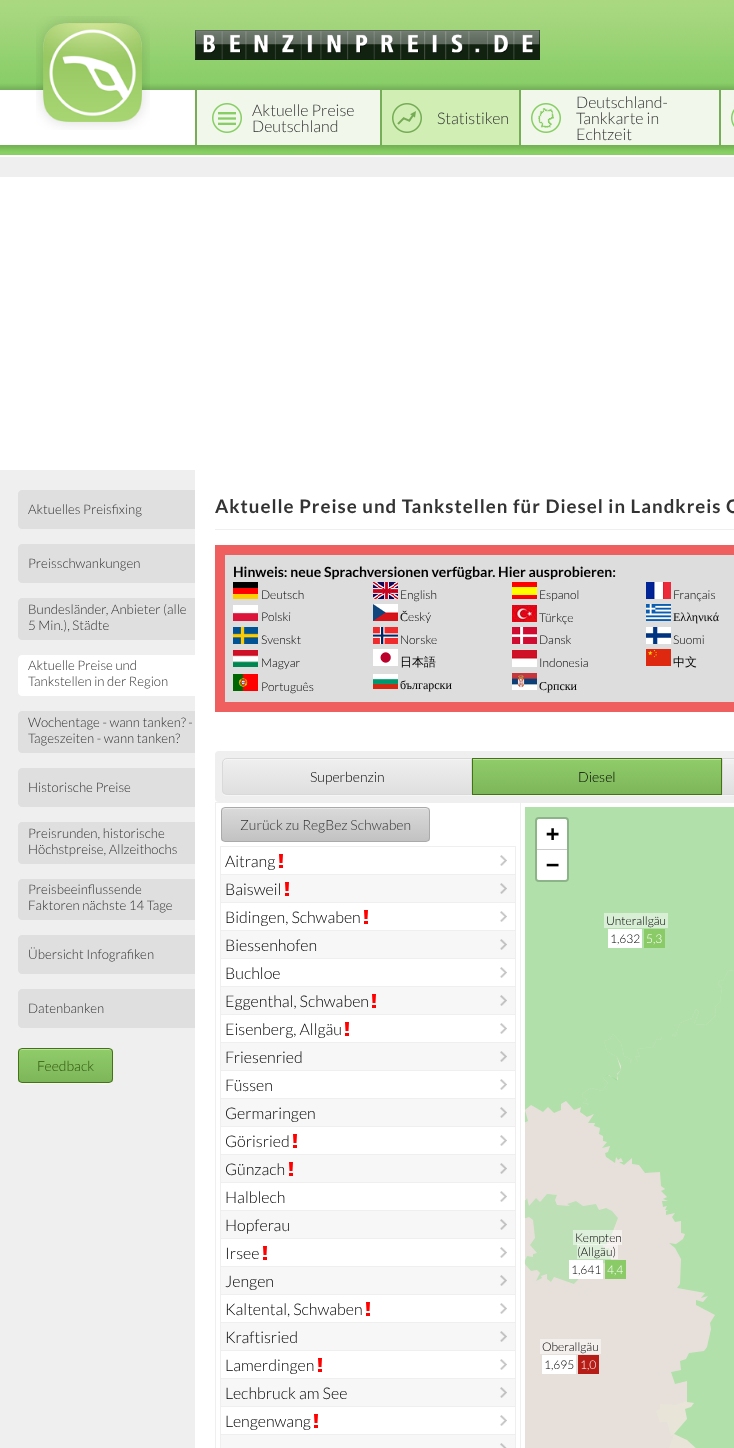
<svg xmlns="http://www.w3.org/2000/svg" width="734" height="1448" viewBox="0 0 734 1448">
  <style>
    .t1 { font: 300 16px Lato; fill: #333; }
    .t2 { font: 300 13.25px Lato; fill: #333; }
    .t3 { font: 300 14px Lato; fill: #31540c; }
    .t4 { font: bold 18.7px Lato; letter-spacing: 1px; fill: #333; }
    .t5 { font: bold 14.05px Lato; fill: #000; }
    .t6 { font: 300 12px Lato; fill: #000; }
    .t7 { font: 12px Liberation Serif; fill: #000; }
    .t8 { font: 500 12px WenQuanYi Zen Hei; fill: #000; }
    .t9 { font: 300 14px Lato; fill: #000; }
    .t10 { font: 300 14px Lato; fill: #333; }
    .t11 { font: 300 16px Lato; fill: #000; }
    .t12 { font: bold 22px DejaVu Sans Mono; fill: #000; }
    .t13 { font: 300 12px Lato; fill: #fff; }
  </style>
  <defs>
    <clipPath id="clip1"><rect x="18" y="1048" width="95" height="35" rx="4"/></clipPath>
    <linearGradient id="g1" gradientUnits="userSpaceOnUse" x1="66" y1="1049" x2="66" y2="1082"><stop offset="0" stop-color="#91cc6a"/><stop offset="1" stop-color="#7cb65a"/></linearGradient>
    <clipPath id="clip2"><path d="M227 758H472V795H227C224 795 222 793 222 790V763C222 760 224 758 227 758Z"/></clipPath>
    <linearGradient id="g2" gradientUnits="userSpaceOnUse" x1="347" y1="759" x2="347" y2="794"><stop offset="0" stop-color="#efefef"/><stop offset="1" stop-color="#dfdfdf"/></linearGradient>
    <linearGradient id="g3" gradientUnits="userSpaceOnUse" x1="597" y1="759" x2="597" y2="794"><stop offset="0" stop-color="#91cc6a"/><stop offset="1" stop-color="#7cb65a"/></linearGradient>
    <linearGradient id="g4" gradientUnits="userSpaceOnUse" x1="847" y1="759" x2="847" y2="794"><stop offset="0" stop-color="#efefef"/><stop offset="1" stop-color="#dfdfdf"/></linearGradient>
    <clipPath id="clip3"><rect x="221" y="807" width="209" height="35" rx="4"/></clipPath>
    <linearGradient id="g5" gradientUnits="userSpaceOnUse" x1="326" y1="808" x2="326" y2="841"><stop offset="0" stop-color="#dadada"/><stop offset="1" stop-color="#c2c2c2"/></linearGradient>
  </defs>
  <rect width="100%" height="100%" fill="#fff"/>
  <image x="0" y="0" width="734" height="90" href="images/1.png"/>
  <image x="195" y="30" width="345" height="30" href="images/2.png"/>
  <image x="36" y="16" width="114" height="114" href="images/3.png"/>
  <rect x="197" y="90" width="537" height="55" fill="#f1f7ea"/>
  <rect x="195" y="90" width="2" height="55" fill="#75ae57"/>
  <image x="212" y="103" width="30" height="30" href="images/4.png"/>
  <text x="252" y="116" class="t1">Aktuelle Preise</text>
  <text x="252" y="132" class="t1">Deutschland</text>
  <rect x="382" y="90" width="137" height="55" fill="#d1efb4"/>
  <rect x="380" y="90" width="2" height="55" fill="#75ae57"/>
  <image x="392" y="103" width="30" height="30" href="images/5.png"/>
  <text x="437" y="124" class="t1">Statistiken</text>
  <rect x="519" y="90" width="2" height="55" fill="#75ae57"/>
  <image x="531" y="103" width="30" height="30" href="images/6.png"/>
  <text x="576" y="108" class="t1">Deutschland-</text>
  <text x="576" y="124" class="t1">Tankkarte in</text>
  <text x="576" y="140" class="t1">Echtzeit</text>
  <rect x="719" y="90" width="2" height="55" fill="#75ae57"/>
  <image x="731" y="109" width="3" height="18" href="images/7.png"/>
  <image x="0" y="145" width="734" height="10" href="images/8.png"/>
  <rect x="0" y="157" width="734" height="20" fill="#efefef"/>
  <rect x="0" y="470" width="195" height="978" fill="#efefef"/>
  <path d="M22 490H195V529H22C20 529 18 527 18 525V494C18 492 20 490 22 490Z" fill="#dfdfdf"/>
  <text x="28" y="514" class="t2">Aktuelles Preisfixing</text>
  <path d="M22 544H195V583H22C20 583 18 581 18 579V548C18 546 20 544 22 544Z" fill="#dfdfdf"/>
  <text x="28" y="568" class="t2">Preisschwankungen</text>
  <path d="M22 598H195V640H22C20 640 18 638 18 636V602C18 600 20 598 22 598Z" fill="#dfdfdf"/>
  <text x="28" y="614" class="t2">Bundesländer, Anbieter (alle</text>
  <text x="28" y="630" class="t2">5 Min.), Städte</text>
  <path d="M22 655H195V696H22C20 696 18 694 18 692V659C18 657 20 655 22 655Z" fill="#fff"/>
  <text x="28" y="670" class="t2">Aktuelle Preise und</text>
  <text x="28" y="686" class="t2">Tankstellen in der Region</text>
  <path d="M22 711H195V753H22C20 753 18 751 18 749V715C18 713 20 711 22 711Z" fill="#dfdfdf"/>
  <text x="28" y="727" class="t2">Wochentage - wann tanken? -</text>
  <text x="28" y="743" class="t2">Tageszeiten - wann tanken?</text>
  <path d="M22 768H195V807H22C20 807 18 805 18 803V772C18 770 20 768 22 768Z" fill="#dfdfdf"/>
  <text x="28" y="792" class="t2">Historische Preise</text>
  <path d="M22 822H195V864H22C20 864 18 862 18 860V826C18 824 20 822 22 822Z" fill="#dfdfdf"/>
  <text x="28" y="838" class="t2">Preisrunden, historische</text>
  <text x="28" y="854" class="t2">Höchstpreise, Allzeithochs</text>
  <path d="M22 879H195V920H22C20 920 18 918 18 916V883C18 881 20 879 22 879Z" fill="#dfdfdf"/>
  <text x="28" y="894" class="t2">Preisbeeinflussende</text>
  <text x="28" y="910" class="t2">Faktoren nächste 14 Tage</text>
  <path d="M22 935H195V974H22C20 974 18 972 18 970V939C18 937 20 935 22 935Z" fill="#dfdfdf"/>
  <text x="28" y="959" class="t2">Übersicht Infografiken</text>
  <path d="M22 989H195V1028H22C20 1028 18 1026 18 1024V993C18 991 20 989 22 989Z" fill="#dfdfdf"/>
  <text x="28" y="1013" class="t2">Datenbanken</text>
  <path d="M18 1079C18 1088 32 1084 36 1084H94C99 1084 113 1088 113 1079C113 1081 111 1083 109 1083H22C20 1083 18 1081 18 1079Z" fill="#f5f5f5"/>
  <g clip-path="url(#clip1)">
    <rect x="18" y="1049" width="95" height="33" fill="url(#g1)"/>
  </g>
  <path d="M22 1050H109C111 1050 112 1051 112 1053C112 1045 98 1049 94 1049H36C33 1049 19 1045 19 1053C19 1051 20 1050 22 1050Z" fill="#ffffff66"/>
  <rect x="18.5" y="1048.5" width="94" height="34" rx="3.5" fill="none" stroke="#447314"/>
  <text x="37" y="1071" class="t3">Feedback</text>
  <rect x="215" y="529" width="519" height="1" fill="#efefef"/>
  <text x="215" y="513" class="t4">Aktuelle Preise und Tankstellen für Diesel in Landkreis O</text>
  <rect x="220" y="550" width="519" height="157" fill="#ddd" stroke="#ef5f5f" stroke-width="10"/>
  <text x="233" y="577" class="t5">Hinweis: neue Sprachversionen verfügbar. Hier ausprobieren:</text>
  <image x="233" y="582" width="25" height="17" href="images/9.png"/>
  <text x="261" y="599" class="t6">Deutsch</text>
  <image x="373" y="582" width="25" height="17" href="images/10.png"/>
  <text x="400" y="599" class="t6">English</text>
  <image x="512" y="582" width="25" height="17" href="images/11.png"/>
  <text x="539" y="599" class="t6">Espanol</text>
  <image x="646" y="582" width="25" height="17" href="images/12.png"/>
  <text x="673" y="599" class="t6">Français</text>
  <image x="233" y="605" width="25" height="16" href="images/13.png"/>
  <text x="261" y="621" class="t6">Polski</text>
  <image x="373" y="604" width="25" height="17" href="images/14.png"/>
  <text x="400" y="621" class="t7">Č</text>
  <text x="408" y="621" class="t6">eský</text>
  <image x="512" y="605" width="25" height="17" href="images/15.png"/>
  <text x="539" y="622" class="t6">Türkçe</text>
  <image x="646" y="604" width="25" height="17" href="images/16.png"/>
  <text x="673" y="621" class="t7">Ελληνικά</text>
  <image x="233" y="627" width="25" height="17" href="images/17.png"/>
  <text x="261" y="644" class="t6">Svenskt</text>
  <image x="373" y="627" width="25" height="17" href="images/18.png"/>
  <text x="400" y="644" class="t6">Norske</text>
  <image x="512" y="627" width="25" height="17" href="images/19.png"/>
  <text x="539" y="644" class="t6">Dansk</text>
  <image x="646" y="627" width="25" height="17" href="images/20.png"/>
  <text x="673" y="644" class="t6">Suomi</text>
  <image x="233" y="650" width="25" height="17" href="images/21.png"/>
  <text x="261" y="667" class="t6">Magyar</text>
  <image x="373" y="649" width="25" height="17" href="images/22.png"/>
  <text x="400" y="666" class="t8">日本語</text>
  <image x="512" y="650" width="25" height="17" href="images/23.png"/>
  <text x="539" y="667" class="t6">Indonesia</text>
  <image x="646" y="649" width="25" height="17" href="images/24.png"/>
  <text x="673" y="666" class="t8">中文</text>
  <image x="233" y="674" width="25" height="17" href="images/25.png"/>
  <text x="261" y="691" class="t6">Português</text>
  <image x="373" y="674" width="25" height="15" href="images/26.png"/>
  <text x="400" y="689" class="t7">български</text>
  <image x="512" y="673" width="25" height="17" href="images/27.png"/>
  <text x="539" y="690" class="t7">Српски</text>
  <rect x="215" y="751" width="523" height="51" rx="4" fill="#efefef"/>
  <path d="M222 790V791C222 794 224 796 227 796H472V795H227C224 795 222 793 222 790Z" fill="#f5f5f5"/>
  <g clip-path="url(#clip2)">
    <rect x="222" y="759" width="249" height="35" fill="url(#g2)"/>
  </g>
  <path d="M227 760H471V759H227C225 759 223 761 223 763V764C223 762 225 760 227 760Z" fill="#f5f5f5"/>
  <path d="M227 758.5H471.5V794.5H227C224.5 794.5 222.5 792.5 222.5 790V763C222.5 760.5 224.5 758.5 227 758.5Z" fill="none" stroke="#d9d9d9"/>
  <text x="310" y="782" class="t9">Superbenzin</text>
  <rect x="472" y="795" width="250" height="1" fill="#f5f5f5"/>
  <rect x="473" y="760" width="248" height="34" fill="url(#g3)"/>
  <rect x="473" y="759" width="248" height="1" fill="#bde0a6"/>
  <rect x="472.5" y="758.5" width="249" height="36" fill="none" stroke="#447314"/>
  <text x="578" y="782" class="t9">Diesel</text>
  <path d="M722 795V796H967C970 796 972 794 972 791V790C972 793 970 795 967 795Z" fill="#f5f5f5"/>
  <rect x="723" y="764" width="11" height="30" fill="url(#g4)"/>
  <path d="M723 760H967C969 760 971 762 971 764V763C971 761 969 759 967 759H723Z" fill="#f5f5f5"/>
  <rect x="722.5" y="758.5" width="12" height="36" fill="none" stroke="#d9d9d9"/>
  <rect x="520" y="802" width="214" height="1" fill="#efefef"/>
  <rect x="520" y="802" width="1" height="646" fill="#efefef"/>
  <rect x="215" y="802" width="306" height="1" fill="#efefef"/>
  <rect x="215" y="802" width="1" height="646" fill="#efefef"/>
  <g clip-path="url(#clip3)">
    <rect x="221" y="808" width="209" height="33" fill="url(#g5)"/>
  </g>
  <path d="M225 809H426C428 809 429 810 429 812C429 810 428 808 426 808H224C222 809 222 810 222 812C222 810 223 809 225 809Z" fill="#e9e9e9"/>
  <rect x="221.5" y="807.5" width="208" height="34" rx="3.5" fill="none" stroke="#aaa"/>
  <text x="240" y="830" class="t10">Zurück zu RegBez Schwaben</text>
  <image x="500" y="855" width="7" height="11" href="images/28.png"/>
  <rect x="220" y="846" width="296" height="1" fill="#efefef"/>
  <rect x="220" y="874" width="296" height="1" fill="#efefef"/>
  <rect x="220" y="902" width="296" height="1" fill="#efefef"/>
  <rect x="220" y="930" width="296" height="1" fill="#efefef"/>
  <rect x="220" y="958" width="296" height="1" fill="#efefef"/>
  <rect x="220" y="986" width="296" height="1" fill="#efefef"/>
  <rect x="220" y="1014" width="296" height="1" fill="#efefef"/>
  <rect x="220" y="1042" width="296" height="1" fill="#efefef"/>
  <rect x="220" y="1070" width="296" height="1" fill="#efefef"/>
  <rect x="220" y="1098" width="296" height="1" fill="#efefef"/>
  <rect x="220" y="1126" width="296" height="1" fill="#efefef"/>
  <rect x="220" y="1154" width="296" height="1" fill="#efefef"/>
  <rect x="220" y="1182" width="296" height="1" fill="#efefef"/>
  <rect x="220" y="1210" width="296" height="1" fill="#efefef"/>
  <rect x="220" y="1238" width="296" height="1" fill="#efefef"/>
  <rect x="220" y="1266" width="296" height="1" fill="#efefef"/>
  <rect x="220" y="1294" width="296" height="1" fill="#efefef"/>
  <rect x="220" y="1322" width="296" height="1" fill="#efefef"/>
  <rect x="220" y="1350" width="296" height="1" fill="#efefef"/>
  <rect x="220" y="1378" width="296" height="1" fill="#efefef"/>
  <rect x="220" y="1406" width="296" height="1" fill="#efefef"/>
  <rect x="220" y="1434" width="296" height="1" fill="#efefef"/>
  <rect x="515" y="1434" width="1" height="14" fill="#efefef"/>
  <rect x="515" y="1406" width="1" height="29" fill="#efefef"/>
  <rect x="515" y="1378" width="1" height="29" fill="#efefef"/>
  <rect x="515" y="1350" width="1" height="29" fill="#efefef"/>
  <rect x="515" y="1322" width="1" height="29" fill="#efefef"/>
  <rect x="515" y="1294" width="1" height="29" fill="#efefef"/>
  <rect x="515" y="1266" width="1" height="29" fill="#efefef"/>
  <rect x="515" y="1238" width="1" height="29" fill="#efefef"/>
  <rect x="515" y="1210" width="1" height="29" fill="#efefef"/>
  <rect x="515" y="1182" width="1" height="29" fill="#efefef"/>
  <rect x="515" y="1154" width="1" height="29" fill="#efefef"/>
  <rect x="515" y="1126" width="1" height="29" fill="#efefef"/>
  <rect x="515" y="1098" width="1" height="29" fill="#efefef"/>
  <rect x="515" y="1070" width="1" height="29" fill="#efefef"/>
  <rect x="515" y="1042" width="1" height="29" fill="#efefef"/>
  <rect x="515" y="1014" width="1" height="29" fill="#efefef"/>
  <rect x="515" y="986" width="1" height="29" fill="#efefef"/>
  <rect x="515" y="958" width="1" height="29" fill="#efefef"/>
  <rect x="515" y="930" width="1" height="29" fill="#efefef"/>
  <rect x="515" y="902" width="1" height="29" fill="#efefef"/>
  <rect x="515" y="874" width="1" height="29" fill="#efefef"/>
  <rect x="515" y="846" width="1" height="29" fill="#efefef"/>
  <rect x="220" y="1434" width="1" height="14" fill="#efefef"/>
  <rect x="220" y="1406" width="1" height="29" fill="#efefef"/>
  <rect x="220" y="1378" width="1" height="29" fill="#efefef"/>
  <rect x="220" y="1350" width="1" height="29" fill="#efefef"/>
  <rect x="220" y="1322" width="1" height="29" fill="#efefef"/>
  <rect x="220" y="1294" width="1" height="29" fill="#efefef"/>
  <rect x="220" y="1266" width="1" height="29" fill="#efefef"/>
  <rect x="220" y="1238" width="1" height="29" fill="#efefef"/>
  <rect x="220" y="1210" width="1" height="29" fill="#efefef"/>
  <rect x="220" y="1182" width="1" height="29" fill="#efefef"/>
  <rect x="220" y="1154" width="1" height="29" fill="#efefef"/>
  <rect x="220" y="1126" width="1" height="29" fill="#efefef"/>
  <rect x="220" y="1098" width="1" height="29" fill="#efefef"/>
  <rect x="220" y="1070" width="1" height="29" fill="#efefef"/>
  <rect x="220" y="1042" width="1" height="29" fill="#efefef"/>
  <rect x="220" y="1014" width="1" height="29" fill="#efefef"/>
  <rect x="220" y="986" width="1" height="29" fill="#efefef"/>
  <rect x="220" y="958" width="1" height="29" fill="#efefef"/>
  <rect x="220" y="930" width="1" height="29" fill="#efefef"/>
  <rect x="220" y="902" width="1" height="29" fill="#efefef"/>
  <rect x="220" y="874" width="1" height="29" fill="#efefef"/>
  <rect x="220" y="846" width="1" height="29" fill="#efefef"/>
  <text x="225" y="867" class="t11">Aitrang</text>
  <image x="279" y="854" width="4" height="14" href="images/29.png"/>
  <rect x="221" y="875" width="294" height="27" fill="#f7f7f7"/>
  <image x="500" y="883" width="7" height="11" href="images/30.png"/>
  <text x="225" y="895" class="t11">Baisweil</text>
  <image x="285" y="882" width="4" height="14" href="images/31.png"/>
  <image x="500" y="911" width="7" height="11" href="images/28.png"/>
  <text x="225" y="923" class="t11">Bidingen, Schwaben</text>
  <image x="364" y="910" width="4" height="14" href="images/29.png"/>
  <rect x="221" y="931" width="294" height="27" fill="#f7f7f7"/>
  <image x="500" y="939" width="7" height="11" href="images/30.png"/>
  <text x="225" y="951" class="t11">Biessenhofen</text>
  <image x="500" y="967" width="7" height="11" href="images/28.png"/>
  <text x="225" y="979" class="t11">Buchloe</text>
  <rect x="221" y="987" width="294" height="27" fill="#f7f7f7"/>
  <image x="500" y="995" width="7" height="11" href="images/30.png"/>
  <text x="225" y="1007" class="t11">Eggenthal, Schwaben</text>
  <image x="372" y="994" width="4" height="14" href="images/31.png"/>
  <image x="500" y="1023" width="7" height="11" href="images/28.png"/>
  <text x="225" y="1035" class="t11">Eisenberg, Allgäu</text>
  <image x="345" y="1022" width="4" height="14" href="images/29.png"/>
  <rect x="221" y="1043" width="294" height="27" fill="#f7f7f7"/>
  <image x="500" y="1051" width="7" height="11" href="images/30.png"/>
  <text x="225" y="1063" class="t11">Friesenried</text>
  <image x="500" y="1079" width="7" height="11" href="images/28.png"/>
  <text x="225" y="1091" class="t11">Füssen</text>
  <rect x="221" y="1099" width="294" height="27" fill="#f7f7f7"/>
  <image x="500" y="1107" width="7" height="11" href="images/30.png"/>
  <text x="225" y="1119" class="t11">Germaringen</text>
  <image x="500" y="1135" width="7" height="11" href="images/28.png"/>
  <text x="225" y="1147" class="t11">Görisried</text>
  <image x="293" y="1134" width="4" height="14" href="images/29.png"/>
  <rect x="221" y="1155" width="294" height="27" fill="#f7f7f7"/>
  <image x="500" y="1163" width="7" height="11" href="images/30.png"/>
  <text x="225" y="1175" class="t11">Günzach</text>
  <image x="289" y="1162" width="4" height="14" href="images/31.png"/>
  <image x="500" y="1191" width="7" height="11" href="images/28.png"/>
  <text x="225" y="1203" class="t11">Halblech</text>
  <rect x="221" y="1211" width="294" height="27" fill="#f7f7f7"/>
  <image x="500" y="1219" width="7" height="11" href="images/30.png"/>
  <text x="225" y="1231" class="t11">Hopferau</text>
  <image x="500" y="1247" width="7" height="11" href="images/28.png"/>
  <text x="225" y="1259" class="t11">Irsee</text>
  <image x="263" y="1246" width="4" height="14" href="images/29.png"/>
  <rect x="221" y="1267" width="294" height="27" fill="#f7f7f7"/>
  <image x="500" y="1275" width="7" height="11" href="images/32.png"/>
  <text x="225" y="1287" class="t11">Jengen</text>
  <image x="500" y="1303" width="7" height="11" href="images/33.png"/>
  <text x="225" y="1315" class="t11">Kaltental, Schwaben</text>
  <image x="366" y="1302" width="4" height="14" href="images/29.png"/>
  <rect x="221" y="1323" width="294" height="27" fill="#f7f7f7"/>
  <image x="500" y="1331" width="7" height="11" href="images/30.png"/>
  <text x="225" y="1343" class="t11">Kraftisried</text>
  <image x="500" y="1359" width="7" height="11" href="images/28.png"/>
  <text x="225" y="1371" class="t11">Lamerdingen</text>
  <image x="318" y="1358" width="4" height="14" href="images/29.png"/>
  <rect x="221" y="1379" width="294" height="27" fill="#f7f7f7"/>
  <image x="500" y="1387" width="7" height="11" href="images/30.png"/>
  <text x="225" y="1399" class="t11">Lechbruck am See</text>
  <image x="500" y="1415" width="7" height="11" href="images/28.png"/>
  <text x="225" y="1427" class="t11">Lengenwang</text>
  <image x="314" y="1414" width="4" height="14" href="images/29.png"/>
  <rect x="221" y="1435" width="294" height="13" fill="#f7f7f7"/>
  <image x="500" y="1443" width="7" height="5" href="images/34.png"/>
  <rect x="525" y="807" width="209" height="641" fill="#e8e5d8"/>
  <image x="525" y="807" width="209" height="641" href="images/35.png"/>
  <rect x="536" y="818" width="32" height="63" rx="3" fill="none" stroke="#8db388" stroke-width="2"/>
  <path d="M539 819H565C566 819 567 820 567 821V850H537V821C537 820 538 819 539 819Z" fill="#fff"/>
  <rect x="537" y="849" width="30" height="1" fill="#ccc"/>
  <text x="546" y="841" class="t12">+</text>
  <path d="M537 850H567V878C567 879 566 880 565 880H539C538 880 537 879 537 878Z" fill="#fff"/>
  <text x="546" y="872" class="t12">−</text>
  <rect x="604" y="913" width="64" height="15" fill="#d8efd5"/>
  <text x="606" y="925" class="t6">Unterallgäu</text>
  <rect x="608" y="929" width="34" height="19" fill="#fff"/>
  <text x="610" y="943" class="t6">1,632</text>
  <rect x="644" y="929" width="21" height="19" fill="#8acb68"/>
  <text x="646" y="943" class="t13">5,3</text>
  <rect x="573" y="1230" width="49" height="15" fill="#ffffff80"/>
  <rect x="577" y="1244" width="41" height="15" fill="#ffffff80"/>
  <text x="575" y="1242" class="t6">Kempten</text>
  <text x="577" y="1256" class="t6">(Allgäu)</text>
  <rect x="569" y="1260" width="34" height="19" fill="#fff"/>
  <text x="571" y="1274" class="t6">1,641</text>
  <rect x="605" y="1260" width="21" height="19" fill="#8acb68"/>
  <text x="607" y="1274" class="t13">4,4</text>
  <rect x="540" y="1339" width="61" height="15" fill="#f3efed"/>
  <text x="542" y="1351" class="t6">Oberallgäu</text>
  <rect x="542" y="1355" width="34" height="19" fill="#fff"/>
  <text x="544" y="1369" class="t6">1,695</text>
  <rect x="578" y="1355" width="21" height="19" fill="#b61d17"/>
  <text x="580" y="1369" class="t13">1,0</text>
</svg>
